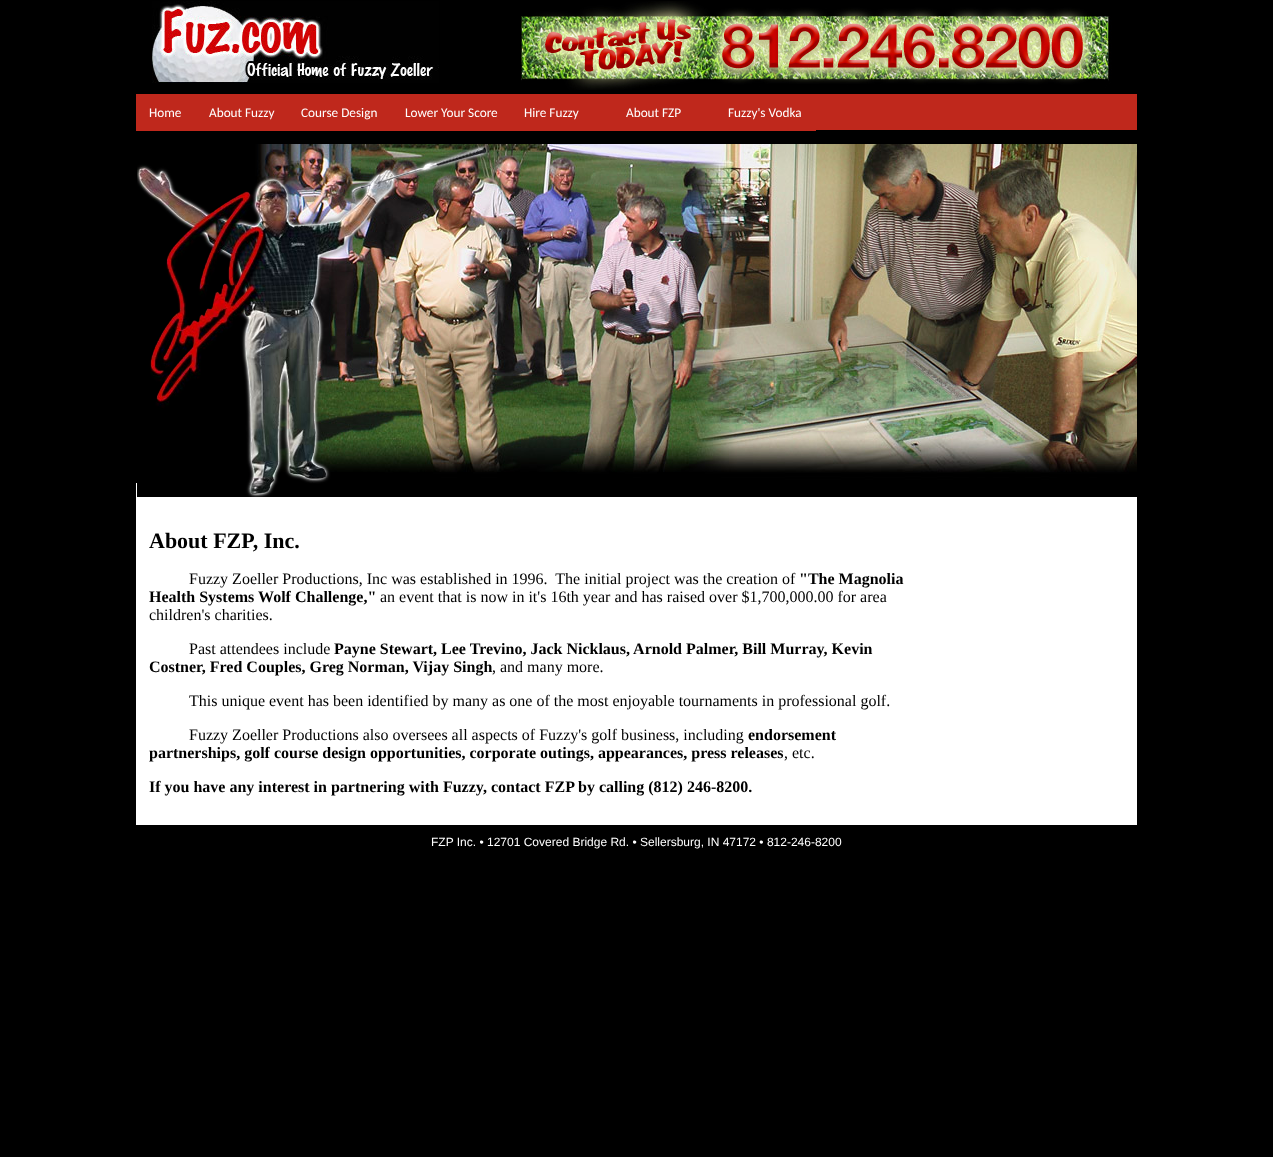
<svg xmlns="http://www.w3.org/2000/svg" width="1273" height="1157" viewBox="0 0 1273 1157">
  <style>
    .t1 { font: 13.25px Carlito; fill: #fff; }
    .t2 { font: bold 22px Liberation Serif; fill: #000; }
    .t3 { font: 16px Liberation Serif; fill: #000; }
    .t4 { font: bold 16px Liberation Serif; fill: #000; }
    .t5 { font: 12px Liberation Sans; fill: #fff; }
  </style>
  <rect width="100%" height="100%" fill="#000"/>
  <image x="152" y="1" width="287" height="82" href="images/1.png"/>
  <image x="521" y="1" width="591" height="89" href="images/2.png"/>
  <rect x="816" y="94" width="321" height="36" fill="#bf281c"/>
  <rect x="136" y="94" width="680" height="37" fill="#bf281c"/>
  <text x="149" y="117" class="t1">Home</text>
  <text x="209" y="117" class="t1">About Fuzzy</text>
  <text x="301" y="117" class="t1">Course Design</text>
  <text x="405" y="117" class="t1">Lower Your Score</text>
  <text x="524" y="117" class="t1">Hire Fuzzy</text>
  <text x="626" y="117" class="t1">About FZP</text>
  <text x="728" y="117" class="t1">Fuzzy's Vodka</text>
  <rect x="136" y="483" width="1001" height="342" fill="#fff"/>
  <image x="137" y="144" width="1000" height="353" href="images/3.png"/>
  <text x="149" y="548" class="t2">About FZP, Inc.</text>
  <text x="189" y="584" class="t3" xml:space="preserve">Fuzzy Zoeller Productions, Inc was established in 1996.  The initial project was the creation of</text>
  <text x="799" y="584" class="t4">"The Magnolia</text>
  <text x="149" y="602" class="t4">Health Systems Wolf Challenge,"</text>
  <text x="380" y="602" class="t3">an event that is now in it's 16th year and has raised over $1,700,000.00 for area</text>
  <text x="149" y="620" class="t3">children's charities.</text>
  <text x="189" y="654" class="t3">Past attendees include</text>
  <text x="334" y="654" class="t4">Payne Stewart, Lee Trevino, Jack Nicklaus, Arnold Palmer, Bill Murray, Kevin</text>
  <text x="149" y="672" class="t4">Costner, Fred Couples, Greg Norman, Vijay Singh</text>
  <text x="492" y="672" class="t3">, and many more.</text>
  <text x="189" y="706" class="t3">This unique event has been identified by many as one of the most enjoyable tournaments in professional golf.</text>
  <text x="189" y="740" class="t3">Fuzzy Zoeller Productions also oversees all aspects of Fuzzy's golf business, including</text>
  <text x="748" y="740" class="t4">endorsement</text>
  <text x="149" y="758" class="t4">partnerships, golf course design opportunities, corporate outings, appearances, press releases</text>
  <text x="784" y="758" class="t3">, etc.</text>
  <text x="149" y="792" class="t4">If you have any interest in partnering with Fuzzy, contact FZP by calling (812) 246-8200.</text>
  <text x="431" y="846" class="t5">FZP Inc. • 12701 Covered Bridge Rd. • Sellersburg, IN 47172 • 812-246-8200</text>
</svg>
